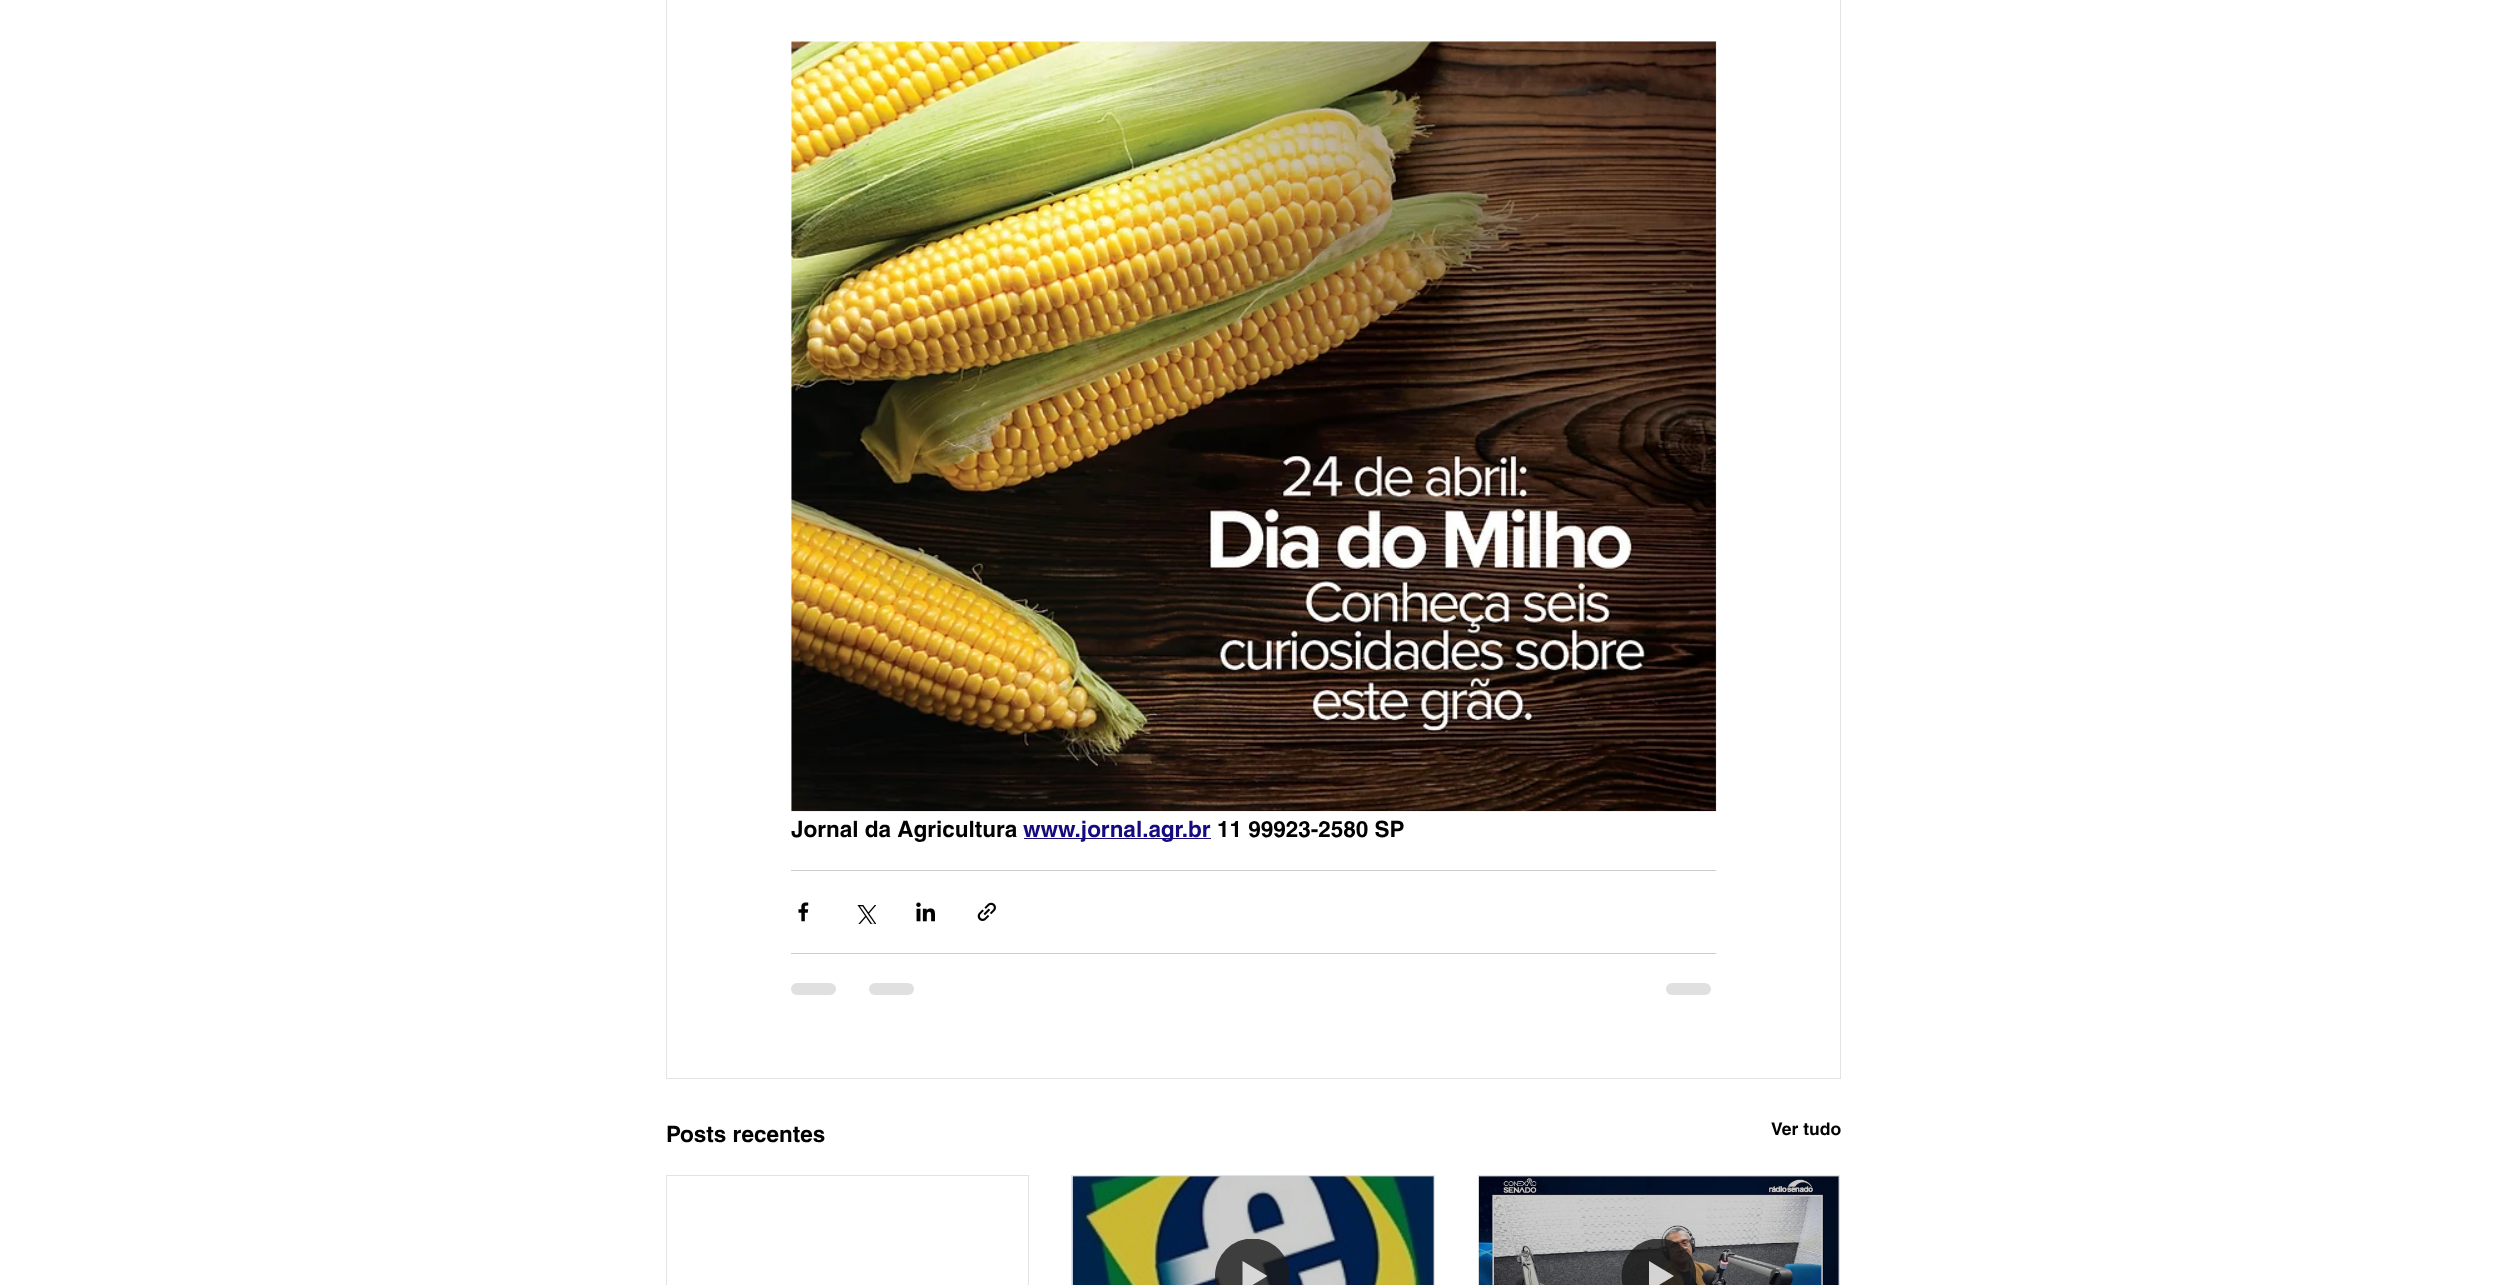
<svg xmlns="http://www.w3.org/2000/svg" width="2506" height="1285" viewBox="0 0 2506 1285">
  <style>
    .t1 { font: bold 22.5px helvetica; fill: #000; }
    .t2 { font: bold 22.5px helvetica; fill: #160a7f; }
    .t3 { font: bold 17.5px helvetica; fill: #000; }
  </style>
  <defs>
    <clipPath id="clip1"><rect x="1215" y="1239" width="75" height="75"/></clipPath>
    <clipPath id="clip2"><rect x="1621" y="1239" width="75" height="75"/></clipPath>
  </defs>
  <rect width="100%" height="100%" fill="#fff"/>
  <rect x="1073" y="1176" width="361" height="109" fill="#ccc"/>
  <rect x="666.5" y="-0.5" width="1174" height="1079" fill="none" stroke="#e3e3e3"/>
  <image x="791" y="41" width="926" height="771" href="images/1.png"/>
  <text x="791" y="837" class="t1">Jornal da Agricultura</text>
  <rect x="1024" y="838" width="187" height="1" fill="#160a7f"/>
  <text x="1023" y="837" class="t2">www.jornal.agr.br</text>
  <text x="1217" y="837" class="t1">11 99923-2580 SP</text>
  <rect x="791" y="870" width="925" height="1" fill="#ccc"/>
  <image x="798" y="902" width="11" height="20" href="images/2.png"/>
  <image x="857" y="905" width="19" height="19" href="images/3.png"/>
  <image x="916" y="902" width="19" height="20" href="images/4.png"/>
  <image x="977" y="902" width="19" height="19" href="images/5.png"/>
  <rect x="791" y="953" width="925" height="1" fill="#ccc"/>
  <rect x="791" y="983" width="45" height="12" rx="6" fill="#e0e0e0"/>
  <rect x="869" y="983" width="45" height="12" rx="6" fill="#e0e0e0"/>
  <rect x="1666" y="983" width="45" height="12" rx="6" fill="#e0e0e0"/>
  <text x="666" y="1142" class="t1">Posts recentes</text>
  <text x="1771" y="1135" class="t3">Ver tudo</text>
  <rect x="666.5" y="1175.5" width="362" height="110" fill="none" stroke="#e3e3e3"/>
  <rect x="1071.5" y="1175.5" width="363" height="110" fill="none" stroke="#e3e3e3"/>
  <image x="1072" y="1176" width="362" height="109" href="images/6.png"/>
  <g clip-path="url(#clip1)">
    <circle cx="1252.5" cy="1276" r="37.5" fill="#1a1a1acc"/>
  </g>
  <path d="M1242.5 1261V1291L1267.5 1276Z" fill="#ffffffcc"/>
  <rect x="1478.5" y="1175.5" width="361" height="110" fill="#ccc" stroke="#e3e3e3"/>
  <image x="1478" y="1176" width="361" height="109" href="images/7.png"/>
  <g clip-path="url(#clip2)">
    <circle cx="1659" cy="1276" r="37.5" fill="#1a1a1acc"/>
  </g>
  <path d="M1649 1261V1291L1674 1276Z" fill="#ffffffcc"/>
</svg>
